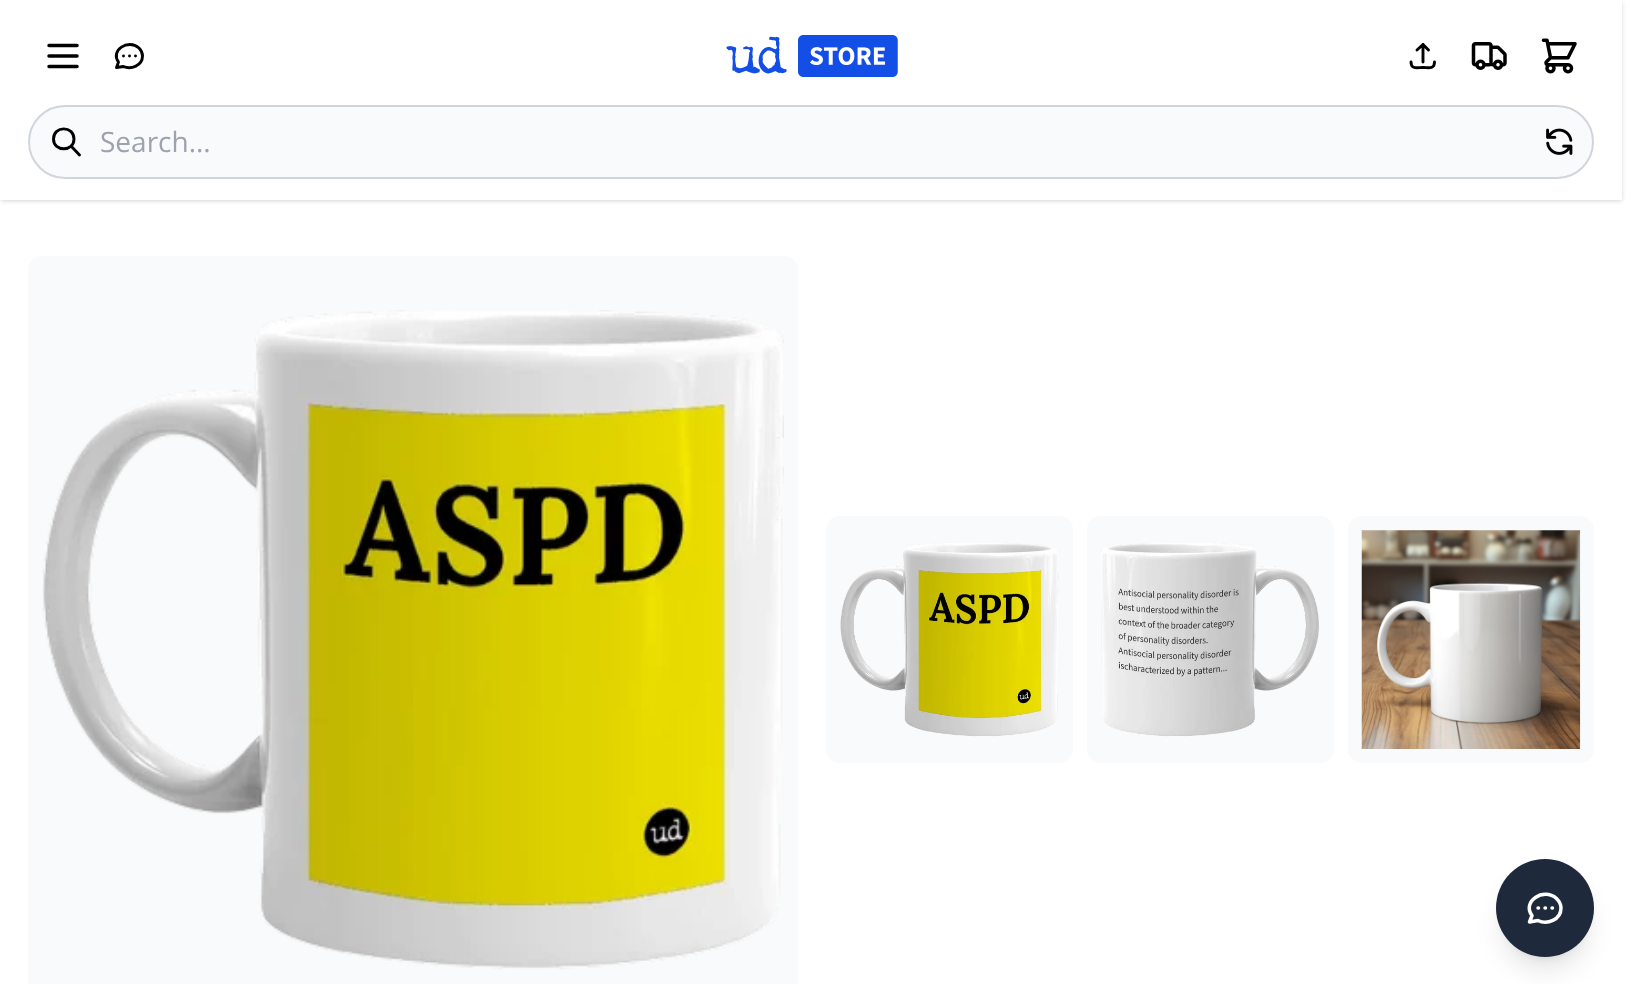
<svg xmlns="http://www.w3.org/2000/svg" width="1647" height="984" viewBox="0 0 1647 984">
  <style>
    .t1 { font: 28px Open Sans; fill: #9ca3af; }
  </style>
  <rect width="100%" height="100%" fill="#fff"/>
  <rect x="2" y="4" width="1619" height="196" fill="#0000001a" filter="blur(2px)"/>
  <rect x="0" y="2" width="1622" height="199" fill="#0000001a" filter="blur(2.5px)"/>
  <rect x="0" y="0" width="1622" height="200" fill="#fff"/>
  <path d="M49 45.5H77M49 56H77M49 66.5H77" fill="none" stroke="#000" stroke-width="3.5" stroke-linecap="round" stroke-linejoin="round"/>
  <path d="M123.5 56H123.5M129.5 56H129.5M135.5 56H135.5M142.5 56C142.5 65.5 131 70 123.5 66.5L116.5 67.5L118.5 62C110 50.5 128 38.5 139 48C141 50 142.5 53 142.5 56Z" fill="none" stroke="#000" stroke-width="2.9" stroke-linecap="round" stroke-linejoin="round"/>
  <image x="726" y="35" width="172" height="42" href="images/1.png"/>
  <path d="M1411 62C1411 69.5 1417 67.5 1423 67.5C1428.5 67.5 1434.5 69.5 1434.5 62M1428.5 50L1423 44.5M1423 44.5L1417 50M1423 44.5V62" fill="none" stroke="#000" stroke-width="2.9" stroke-linecap="round" stroke-linejoin="round"/>
  <image x="1471" y="42" width="36" height="28" href="images/2.png"/>
  <image x="1541" y="38" width="36" height="36" href="images/3.png"/>
  <rect x="29" y="106" width="1564" height="72" rx="36" fill="#f9fafb" stroke="#d1d5db" stroke-width="2"/>
  <path d="M79.5 155L71 146M74 139C74 152 53.5 152 53.5 139C53.5 125.5 74 125.5 74 139Z" fill="none" stroke="#000" stroke-width="2.9" stroke-linecap="round" stroke-linejoin="round"/>
  <text x="100" y="152" class="t1">Search...</text>
  <image x="1546" y="128" width="27" height="27" href="images/4.png"/>
  <rect x="28" y="256" width="770" height="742" rx="14" fill="#f9fafb"/>
  <image x="42" y="310" width="742" height="660" href="images/5.png"/>
  <rect x="826" y="516" width="247" height="247" rx="14" fill="#f9fafb"/>
  <image x="840" y="542" width="219" height="195" href="images/6.png"/>
  <rect x="1087" y="516" width="247" height="247" rx="14" fill="#f9fafb"/>
  <image x="1101" y="543" width="218" height="194" href="images/7.png"/>
  <rect x="1348" y="516" width="246" height="247" rx="14" fill="#f9fafb"/>
  <image x="1361" y="530" width="220" height="219" href="images/8.png"/>
  <rect x="1503" y="873" width="84" height="84" rx="42" fill="#0000001a" filter="blur(5px)"/>
  <rect x="1502" y="882" width="87" height="88" rx="43.5" fill="#0000001a" filter="blur(13px)"/>
  <circle cx="1545" cy="908" r="49" fill="#1e293b"/>
  <path d="M1538 908H1538.5M1545 908H1545.5M1552 908H1552.5M1561 908C1561 920 1547 925 1538 920.5L1529.5 922L1532 915.5C1521.5 901.5 1543.5 887 1556.5 898.5C1559 901 1561 904.5 1561 908Z" fill="none" stroke="#fff" stroke-width="3.5" stroke-linecap="round" stroke-linejoin="round"/>
</svg>
